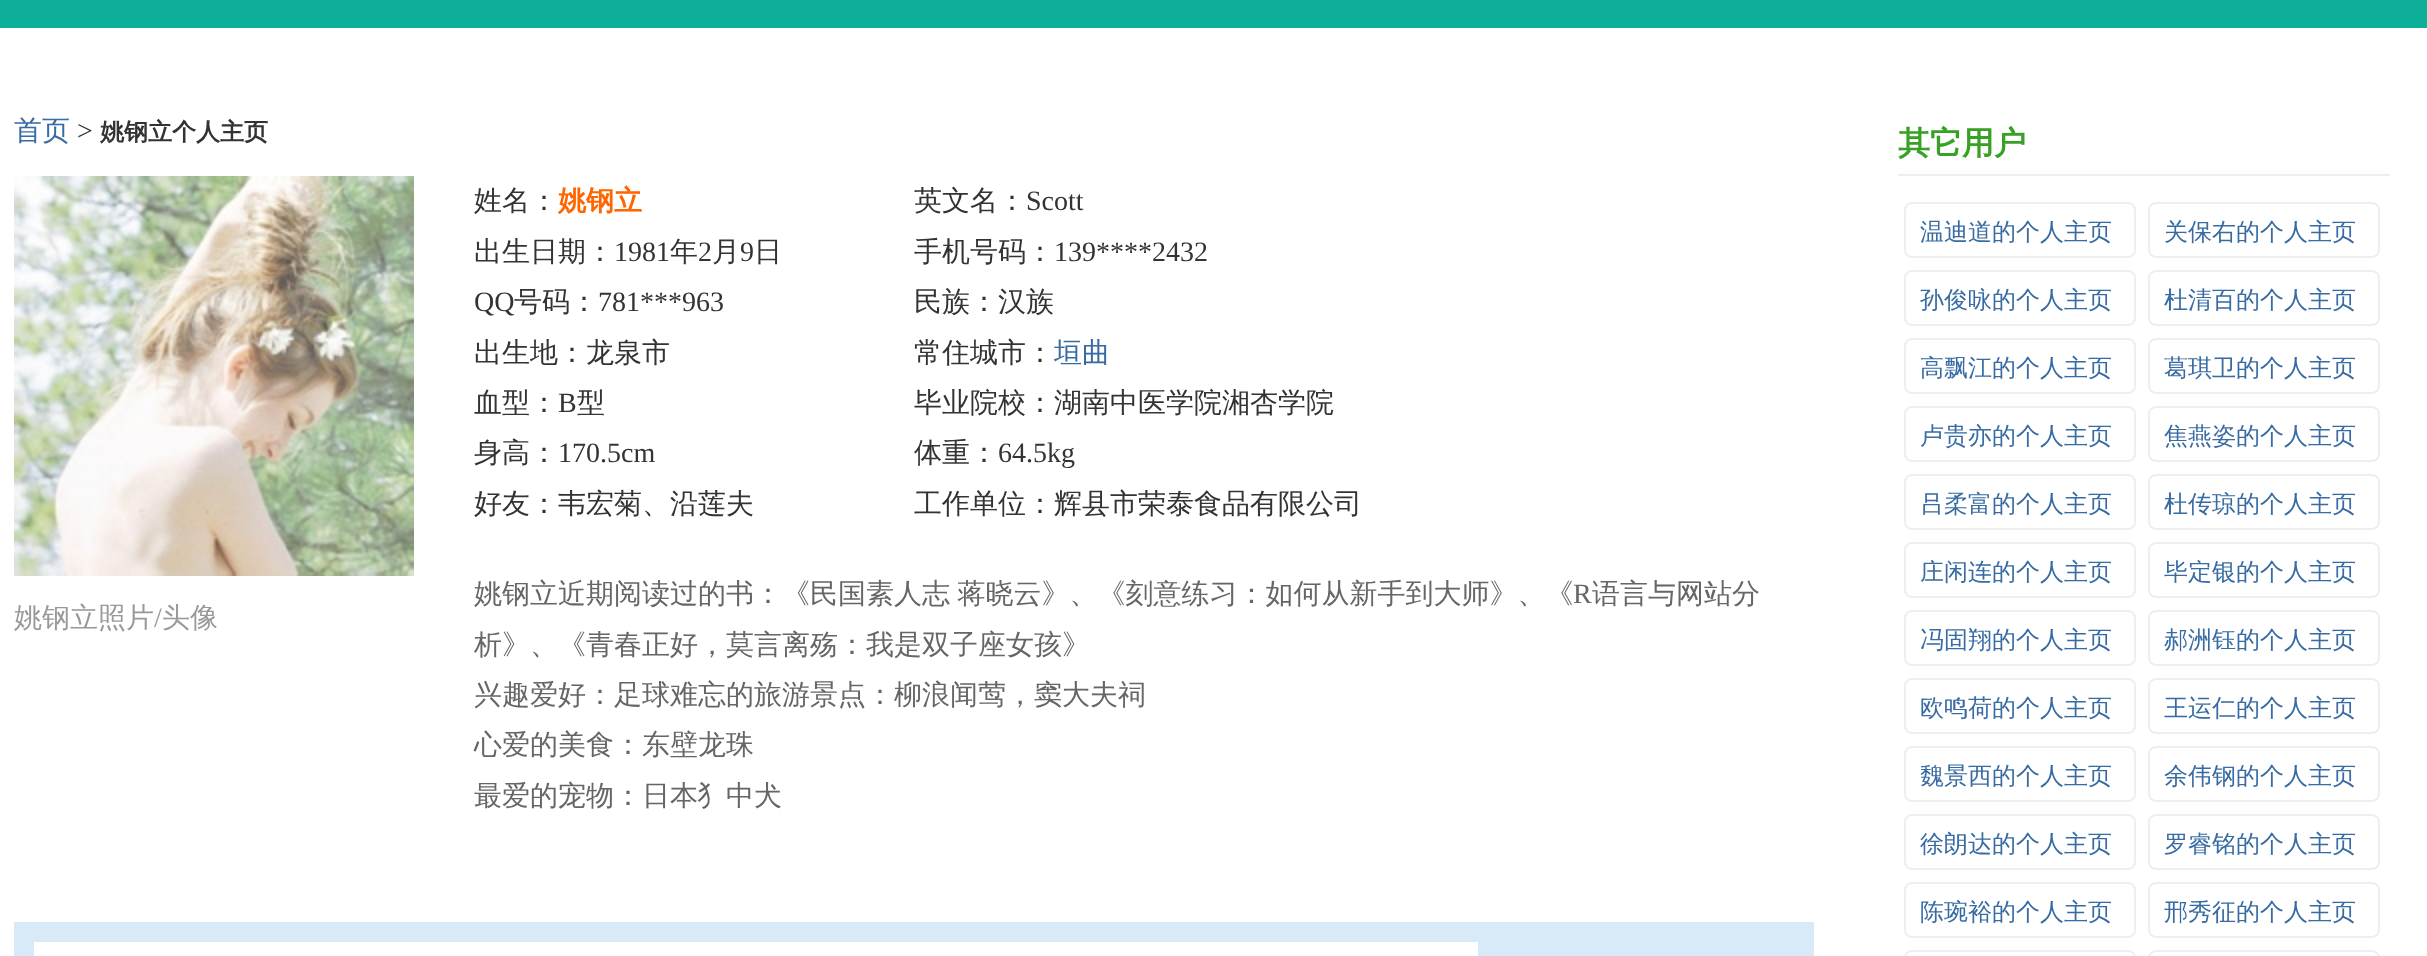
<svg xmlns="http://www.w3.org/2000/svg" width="2427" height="956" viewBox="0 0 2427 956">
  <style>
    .t1 { font: 500 28px WenQuanYi Zen Hei; fill: #376ba2; }
    .t2 { font: 28px Liberation Serif; fill: #333; }
    .t3 { font: bold 24px WenQuanYi Zen Hei; fill: #333; }
    .t4 { font: 500 28px WenQuanYi Zen Hei; fill: #999; }
    .t5 { font: 28px Liberation Serif; fill: #999; }
    .t6 { font: 500 28px WenQuanYi Zen Hei; fill: #333; }
    .t7 { font: bold 28px WenQuanYi Zen Hei; fill: #f60; }
    .t8 { font: 500 28px WenQuanYi Zen Hei; fill: #666; }
    .t9 { font: 28px Liberation Serif; fill: #666; }
    .t10 { font: bold 32px WenQuanYi Zen Hei; fill: #38a025; }
    .t11 { font: 500 24px WenQuanYi Zen Hei; fill: #376ba2; }
  </style>
  <rect width="100%" height="100%" fill="#fff"/>
  <rect x="0" y="0" width="2427" height="28" fill="#0eaf99"/>
  <text x="14" y="140" class="t1">首页</text>
  <text x="77" y="140" class="t2">&gt;</text>
  <text x="100" y="140" class="t3">姚钢立个人主页</text>
  <image x="14" y="176" width="400" height="400" href="images/1.png"/>
  <text x="14" y="627" class="t4">姚钢立照片</text>
  <text x="154" y="627" class="t5">/</text>
  <text x="162" y="627" class="t4">头像</text>
  <text x="474" y="210" class="t6">姓名：</text>
  <text x="558" y="210" class="t7">姚钢立</text>
  <text x="914" y="210" class="t6">英文名：</text>
  <text x="1026" y="210" class="t2">Scott</text>
  <text x="474" y="261" class="t6">出生日期：</text>
  <text x="614" y="261" class="t2">1981</text>
  <text x="670" y="261" class="t6">年</text>
  <text x="698" y="261" class="t2">2</text>
  <text x="712" y="261" class="t6">月</text>
  <text x="740" y="261" class="t2">9</text>
  <text x="754" y="261" class="t6">日</text>
  <text x="914" y="261" class="t6">手机号码：</text>
  <text x="1054" y="261" class="t2">139****2432</text>
  <text x="474" y="311" class="t2">QQ</text>
  <text x="514" y="311" class="t6">号码：</text>
  <text x="598" y="311" class="t2">781***963</text>
  <text x="914" y="311" class="t6">民族：汉族</text>
  <text x="474" y="362" class="t6">出生地：龙泉市</text>
  <text x="914" y="362" class="t6">常住城市：</text>
  <text x="1054" y="362" class="t1">垣曲</text>
  <text x="474" y="412" class="t6">血型：</text>
  <text x="558" y="412" class="t2">B</text>
  <text x="577" y="412" class="t6">型</text>
  <text x="914" y="412" class="t6">毕业院校：湖南中医学院湘杏学院</text>
  <text x="474" y="462" class="t6">身高：</text>
  <text x="558" y="462" class="t2">170.5cm</text>
  <text x="914" y="462" class="t6">体重：</text>
  <text x="998" y="462" class="t2">64.5kg</text>
  <text x="474" y="513" class="t6">好友：韦宏菊、沿莲夫</text>
  <text x="914" y="513" class="t6">工作单位：辉县市荣泰食品有限公司</text>
  <text x="474" y="603" word-spacing="-1" class="t8">姚钢立近期阅读过的书：《民国素人志 蒋晓云》、《刻意练习：如何从新手到大师》、《</text>
  <text x="1573" y="603" class="t9">R</text>
  <text x="1592" y="603" class="t8">语言与网站分</text>
  <text x="474" y="654" class="t8">析》、《青春正好，莫言离殇：我是双子座女孩》</text>
  <text x="474" y="704" class="t8">兴趣爱好：足球难忘的旅游景点：柳浪闻莺，窦大夫祠</text>
  <text x="474" y="754" class="t8">心爱的美食：东壁龙珠</text>
  <text x="474" y="805" class="t8">最爱的宠物：日本犭中犬</text>
  <rect x="14" y="922" width="1800" height="34" fill="#d8eaf7"/>
  <rect x="34" y="942" width="1444" height="14" fill="#fff"/>
  <rect x="1898" y="174" width="492" height="2" fill="#eee"/>
  <text x="1898" y="154" class="t10">其它用户</text>
  <rect x="1905" y="203" width="230" height="54" rx="7" fill="none" stroke="#eee" stroke-width="2"/>
  <text x="1920" y="240" class="t11">温迪道的个人主页</text>
  <rect x="2149" y="203" width="230" height="54" rx="7" fill="none" stroke="#eee" stroke-width="2"/>
  <text x="2164" y="240" class="t11">关保右的个人主页</text>
  <rect x="1905" y="271" width="230" height="54" rx="7" fill="none" stroke="#eee" stroke-width="2"/>
  <text x="1920" y="308" class="t11">孙俊咏的个人主页</text>
  <rect x="2149" y="271" width="230" height="54" rx="7" fill="none" stroke="#eee" stroke-width="2"/>
  <text x="2164" y="308" class="t11">杜清百的个人主页</text>
  <rect x="1905" y="339" width="230" height="54" rx="7" fill="none" stroke="#eee" stroke-width="2"/>
  <text x="1920" y="376" class="t11">高飘江的个人主页</text>
  <rect x="2149" y="339" width="230" height="54" rx="7" fill="none" stroke="#eee" stroke-width="2"/>
  <text x="2164" y="376" class="t11">葛琪卫的个人主页</text>
  <rect x="1905" y="407" width="230" height="54" rx="7" fill="none" stroke="#eee" stroke-width="2"/>
  <text x="1920" y="444" class="t11">卢贵亦的个人主页</text>
  <rect x="2149" y="407" width="230" height="54" rx="7" fill="none" stroke="#eee" stroke-width="2"/>
  <text x="2164" y="444" class="t11">焦燕姿的个人主页</text>
  <rect x="1905" y="475" width="230" height="54" rx="7" fill="none" stroke="#eee" stroke-width="2"/>
  <text x="1920" y="512" class="t11">吕柔富的个人主页</text>
  <rect x="2149" y="475" width="230" height="54" rx="7" fill="none" stroke="#eee" stroke-width="2"/>
  <text x="2164" y="512" class="t11">杜传琼的个人主页</text>
  <rect x="1905" y="543" width="230" height="54" rx="7" fill="none" stroke="#eee" stroke-width="2"/>
  <text x="1920" y="580" class="t11">庄闲连的个人主页</text>
  <rect x="2149" y="543" width="230" height="54" rx="7" fill="none" stroke="#eee" stroke-width="2"/>
  <text x="2164" y="580" class="t11">毕定银的个人主页</text>
  <rect x="1905" y="611" width="230" height="54" rx="7" fill="none" stroke="#eee" stroke-width="2"/>
  <text x="1920" y="648" class="t11">冯固翔的个人主页</text>
  <rect x="2149" y="611" width="230" height="54" rx="7" fill="none" stroke="#eee" stroke-width="2"/>
  <text x="2164" y="648" class="t11">郝洲钰的个人主页</text>
  <rect x="1905" y="679" width="230" height="54" rx="7" fill="none" stroke="#eee" stroke-width="2"/>
  <text x="1920" y="716" class="t11">欧鸣荷的个人主页</text>
  <rect x="2149" y="679" width="230" height="54" rx="7" fill="none" stroke="#eee" stroke-width="2"/>
  <text x="2164" y="716" class="t11">王运仁的个人主页</text>
  <rect x="1905" y="747" width="230" height="54" rx="7" fill="none" stroke="#eee" stroke-width="2"/>
  <text x="1920" y="784" class="t11">魏景西的个人主页</text>
  <rect x="2149" y="747" width="230" height="54" rx="7" fill="none" stroke="#eee" stroke-width="2"/>
  <text x="2164" y="784" class="t11">余伟钢的个人主页</text>
  <rect x="1905" y="815" width="230" height="54" rx="7" fill="none" stroke="#eee" stroke-width="2"/>
  <text x="1920" y="852" class="t11">徐朗达的个人主页</text>
  <rect x="2149" y="815" width="230" height="54" rx="7" fill="none" stroke="#eee" stroke-width="2"/>
  <text x="2164" y="852" class="t11">罗睿铭的个人主页</text>
  <rect x="1905" y="883" width="230" height="54" rx="7" fill="none" stroke="#eee" stroke-width="2"/>
  <text x="1920" y="920" class="t11">陈琬裕的个人主页</text>
  <rect x="2149" y="883" width="230" height="54" rx="7" fill="none" stroke="#eee" stroke-width="2"/>
  <text x="2164" y="920" class="t11">邢秀征的个人主页</text>
  <rect x="1905" y="951" width="230" height="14" rx="7" fill="none" stroke="#eee" stroke-width="2"/>
  <rect x="2149" y="951" width="230" height="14" rx="7" fill="none" stroke="#eee" stroke-width="2"/>
</svg>
